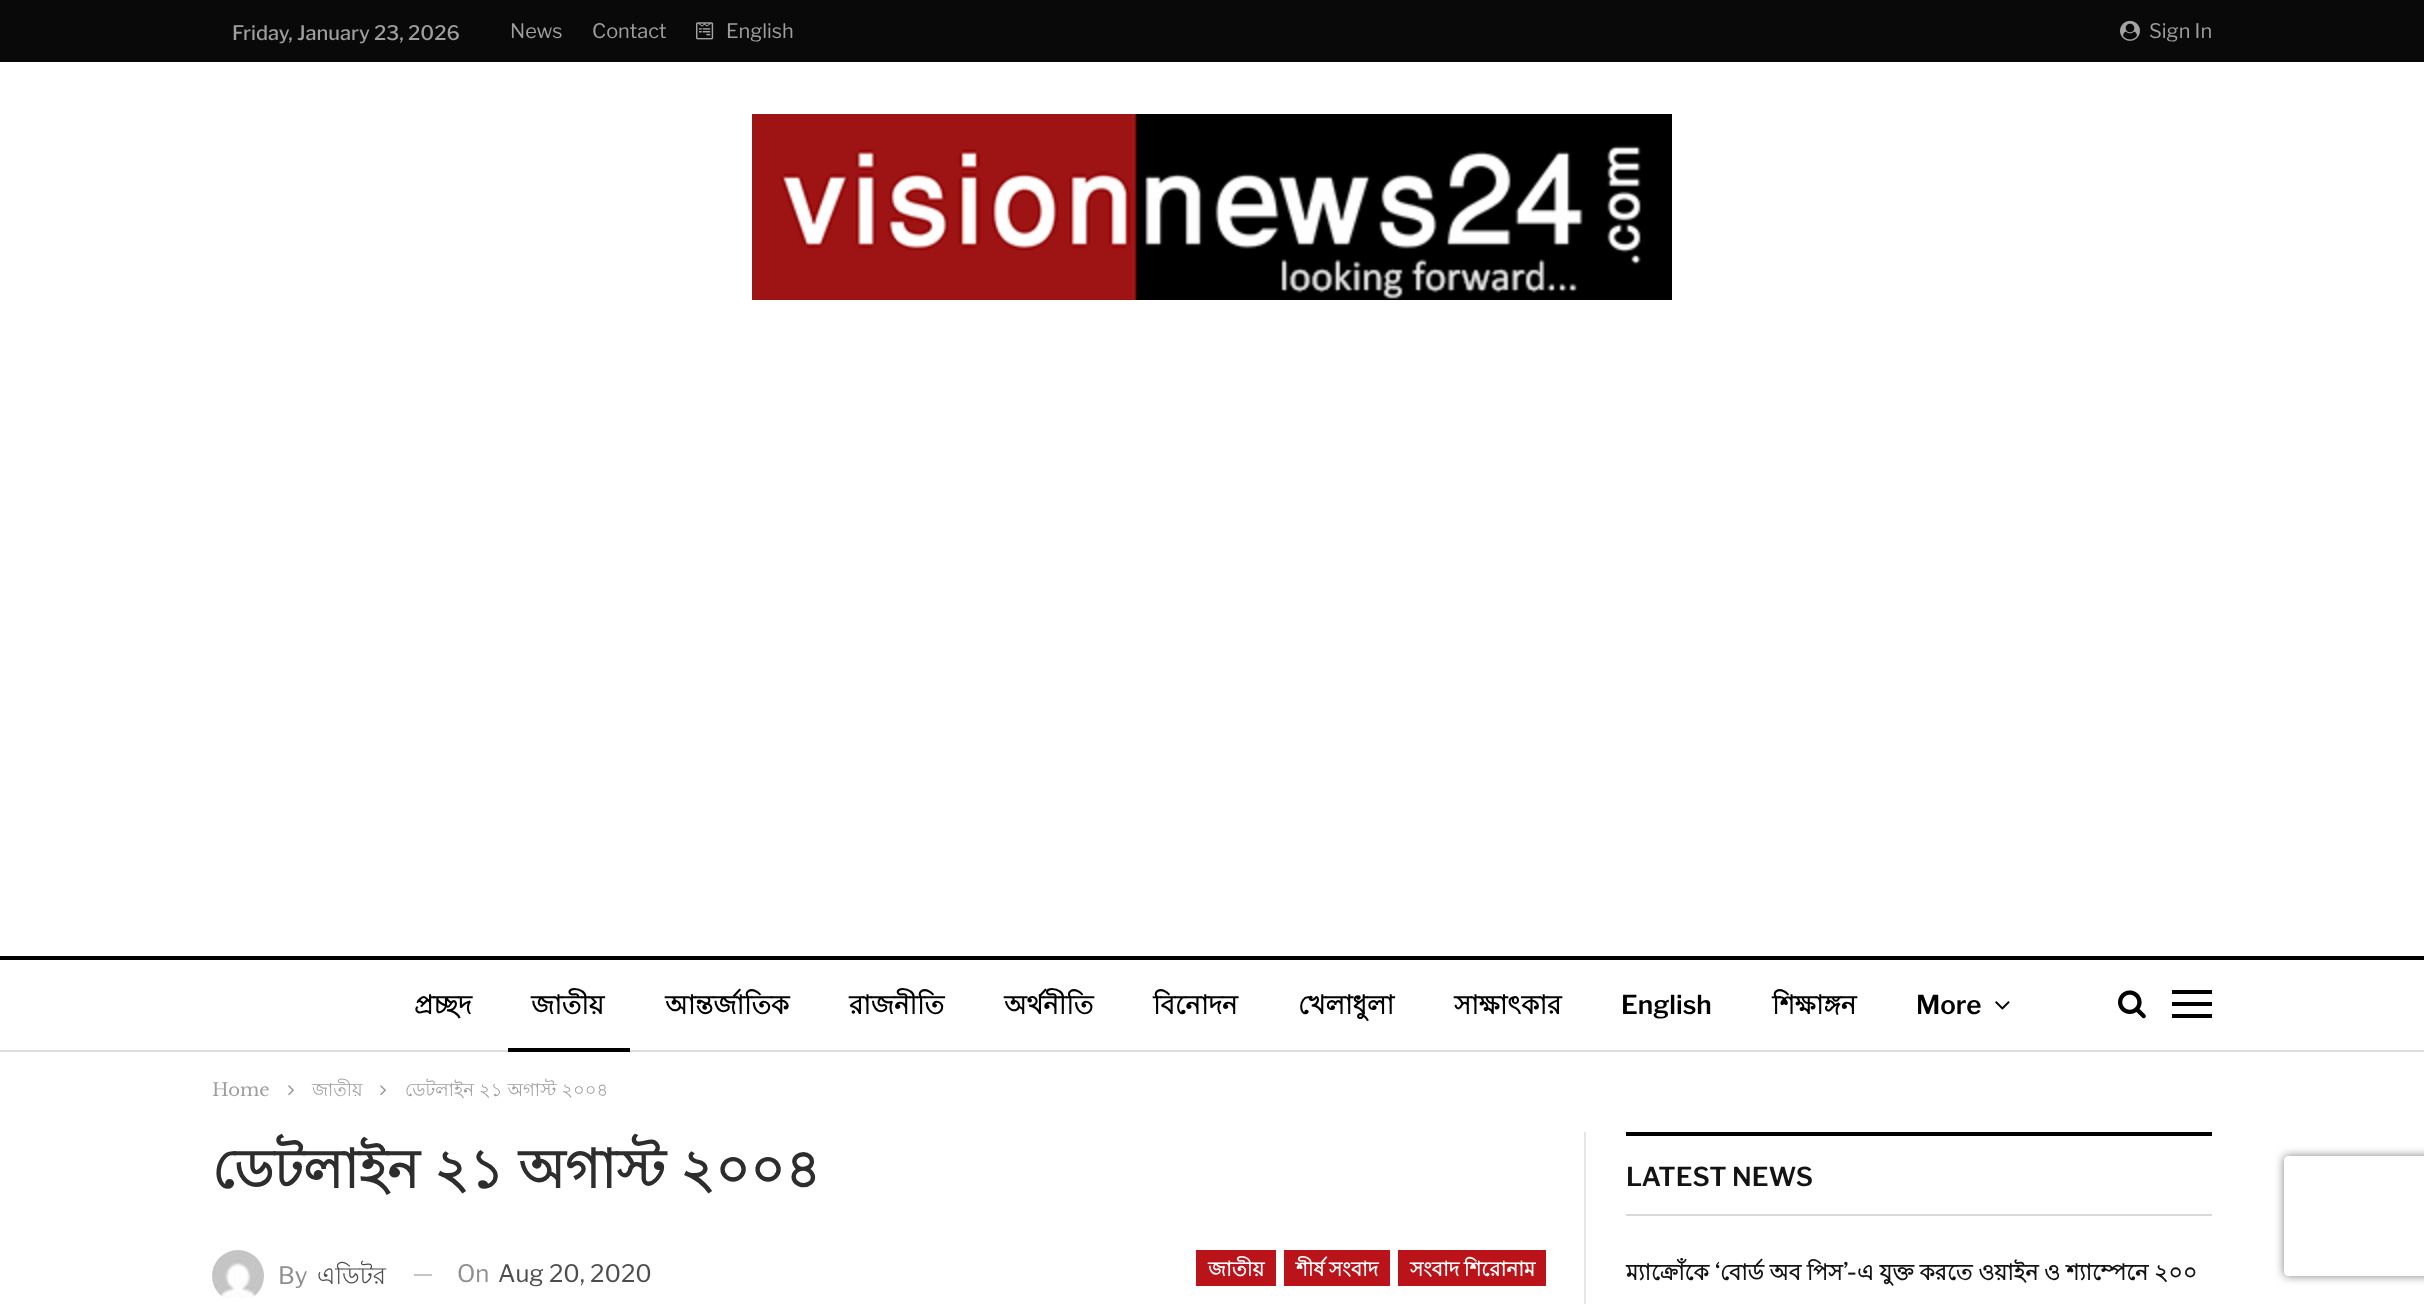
<svg xmlns="http://www.w3.org/2000/svg" width="2424" height="1304" viewBox="0 0 2424 1304">
  <style>
    .t1 { font: 500 20px Libre Franklin; fill: #9e9e9e; }
    .t2 { font: 20px Libre Franklin; fill: #9e9e9e; }
    .t3 { font: bold 26px Lohit Bengali; fill: #000; }
    .t4 { font: 600 26px Libre Franklin; fill: #000; }
    .t5 { font: 18px Libre Baskerville; fill: #9e9e9e; }
    .t6 { font: 18px Lohit Bengali; fill: #9e9e9e; }
    .t7 { font: bold 54px Lohit Bengali; fill: #2d2d2d; }
    .t8 { font: 24px Libre Franklin; fill: #8f8f8f; }
    .t9 { font: 24px Lohit Bengali; fill: #4d4d4d; }
    .t10 { font: 24px Libre Franklin; fill: #4d4d4d; }
    .t11 { font: bold 20px Lohit Bengali; fill: #fff; }
    .t12 { font: 600 26px Libre Franklin; fill: #131313; }
    .t13 { font: bold 22px Lohit Bengali; fill: #131313; }
    .t14 { font: bold 22px Libre Baskerville; fill: #131313; }
  </style>
  <defs>
    <clipPath id="clip1"><path d="M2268 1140H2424V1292H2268ZM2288 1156H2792C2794 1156 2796 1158 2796 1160V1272C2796 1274 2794 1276 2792 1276H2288C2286 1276 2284 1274 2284 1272V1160C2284 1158 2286 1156 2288 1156Z" clip-rule="evenodd"/></clipPath>
  </defs>
  <rect width="100%" height="100%" fill="#fff"/>
  <rect x="0" y="0" width="2424" height="62" fill="#090909"/>
  <text x="232" y="40" class="t1">Friday, January 23, 2026</text>
  <text x="510" y="38" class="t2">News</text>
  <text x="592" y="38" class="t2">Contact</text>
  <image x="696" y="22" width="18" height="18" href="images/1.png"/>
  <text x="726" y="38" class="t2">English</text>
  <image x="2120" y="20" width="20" height="21" href="images/2.png"/>
  <text x="2149" y="38" class="t2">Sign In</text>
  <image x="752" y="114" width="920" height="186" href="images/3.png"/>
  <rect x="0" y="956" width="2424" height="4" fill="#000"/>
  <rect x="0" y="1050" width="2424" height="2" fill="#ddd"/>
  <text x="414" y="1014" class="t3">প্রচ্ছদ</text>
  <text x="531" y="1014" class="t3">জাতীয়</text>
  <rect x="508" y="1048" width="122" height="4" fill="#000"/>
  <text x="665" y="1014" class="t3">আন্তর্জাতিক</text>
  <text x="849" y="1014" class="t3">রাজনীতি</text>
  <text x="1004" y="1014" class="t3">অর্থনীতি</text>
  <text x="1153" y="1014" class="t3">বিনোদন</text>
  <text x="1298" y="1014" class="t3">খেলাধুলা</text>
  <text x="1454" y="1014" class="t3">সাক্ষাৎকার</text>
  <text x="1621" y="1014" class="t4">English</text>
  <text x="1772" y="1014" class="t3">শিক্ষাঙ্গন</text>
  <text x="1916" y="1014" class="t4">More</text>
  <image x="1995" y="1001" width="15" height="9" href="images/4.png"/>
  <image x="2118" y="990" width="28" height="29" href="images/5.png"/>
  <rect x="2172" y="1002" width="40" height="4" fill="#000"/>
  <rect x="2172" y="990" width="40" height="4" fill="#000"/>
  <rect x="2172" y="1014" width="40" height="4" fill="#000"/>
  <text x="212" y="1096" class="t5">Home</text>
  <image x="288" y="1085" width="6" height="11" href="images/6.png"/>
  <text x="312" y="1096" class="t6">জাতীয়</text>
  <image x="380" y="1085" width="6" height="11" href="images/6.png"/>
  <text x="405" y="1096" class="t6">ডেটলাইন ২১ অগাস্ট ২০০৪</text>
  <text x="212" y="1188" word-spacing="-0.5" class="t7">ডেটলাইন ২১ অগাস্ট ২০০৪</text>
  <image x="212" y="1250" width="52" height="48" href="images/7.png"/>
  <text x="278" y="1284" class="t8">By</text>
  <text x="317" y="1284" class="t9">এডিটর</text>
  <rect x="414" y="1274" width="18" height="2" fill="#c4c4c4"/>
  <text x="457" y="1282" class="t8">On</text>
  <text x="498" y="1282" class="t10">Aug 20, 2020</text>
  <rect x="1196" y="1250" width="80" height="36" fill="#ba141a"/>
  <text x="1208" y="1276" class="t11">জাতীয়</text>
  <rect x="1284" y="1250" width="106" height="36" fill="#ba141a"/>
  <text x="1296" y="1276" word-spacing="-1" class="t11">শীর্ষ সংবাদ</text>
  <rect x="1398" y="1250" width="148" height="36" fill="#ba141a"/>
  <text x="1410" y="1276" word-spacing="-1" class="t11">সংবাদ শিরোনাম</text>
  <rect x="1584" y="1132" width="2" height="172" fill="#e6e6e6"/>
  <rect x="1626" y="1132" width="586" height="4" fill="#000"/>
  <text x="1626" y="1186" class="t12">LATEST NEWS</text>
  <rect x="1626" y="1214" width="586" height="2" fill="#d9d9d9"/>
  <text x="1626" y="1280" class="t13">ম্যাক্রোঁকে</text>
  <text x="1715" y="1280" class="t14">‘</text>
  <text x="1720" y="1280" word-spacing="-0.25" class="t13">বোর্ড অব পিস</text>
  <text x="1843" y="1280" class="t14">’-</text>
  <text x="1857" y="1280" word-spacing="-0.25" class="t13">এ যুক্ত করতে ওয়াইন ও শ্যাম্পেনে ২০০</text>
  <g clip-path="url(#clip1)">
    <rect x="2284" y="1156" width="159" height="120" rx="4" fill="#808080" filter="blur(5px)"/>
  </g>
</svg>
